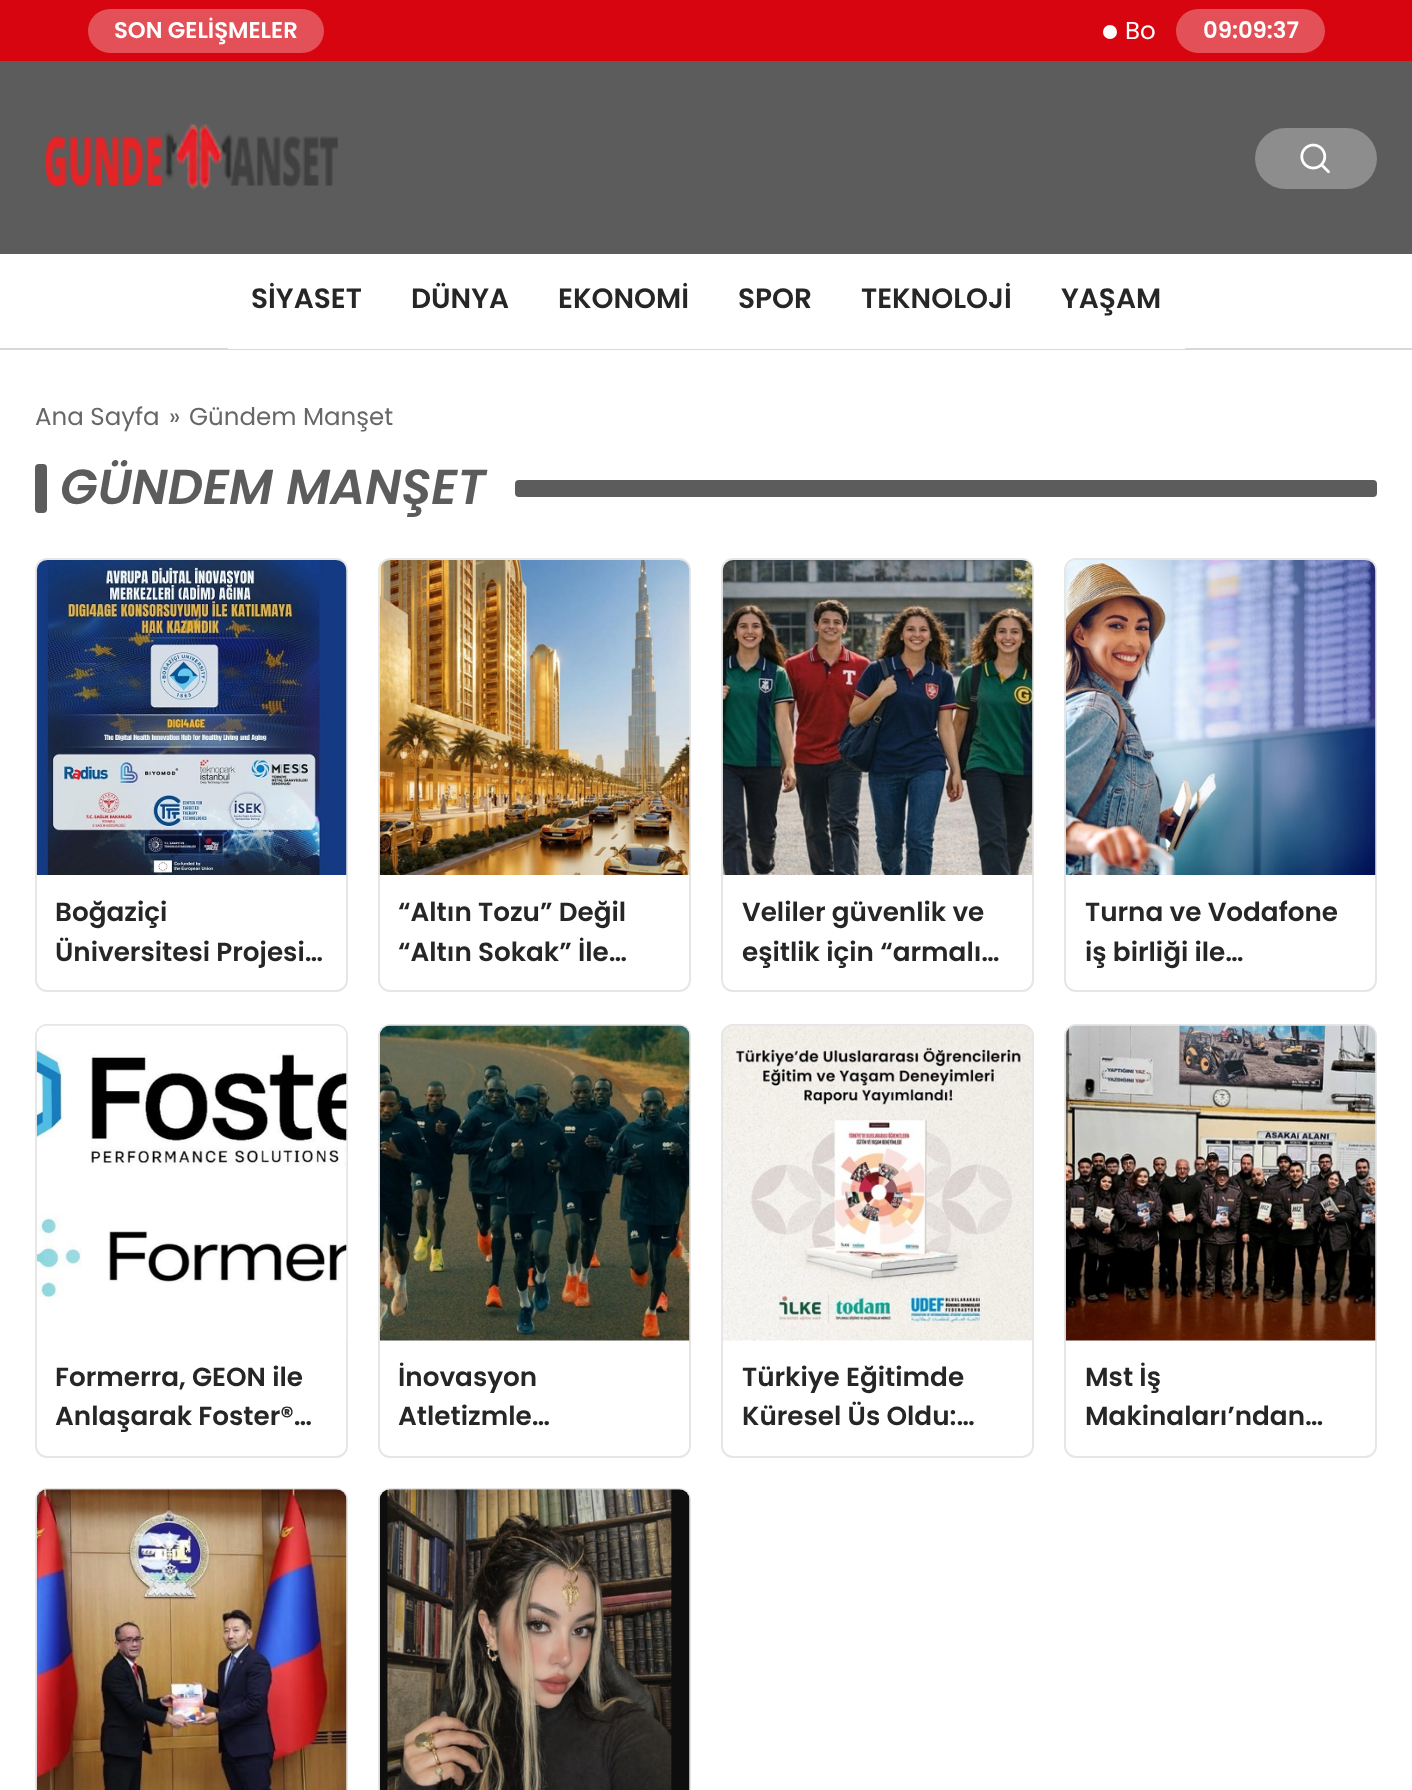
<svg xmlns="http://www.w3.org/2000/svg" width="1412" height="1790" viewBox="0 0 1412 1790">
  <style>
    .t1 { font: 600 22.75px Poppins; fill: #fff; }
    .t2 { font: 24.5px Poppins; fill: #fff; }
    .t3 { font: 600 28px Poppins; fill: #262626; }
    .t4 { font: 24.5px Poppins; fill: #676767; }
    .t5 { font: italic 600 49px Poppins; fill: #5c5c5c; }
    .t6 { font: 600 26.25px Poppins; fill: #262626; }
  </style>
  <rect width="100%" height="100%" fill="#fff"/>
  <rect x="0" y="0" width="1412" height="61" fill="#d7050f"/>
  <rect x="88" y="9" width="236" height="44" rx="22" fill="#e35057"/>
  <text x="114" y="38" class="t1">SON GELİŞMELER</text>
  <circle cx="1110" cy="32" r="7" fill="#fff"/>
  <text x="1125" y="39" class="t2">Bo</text>
  <rect x="1176" y="9" width="149" height="44" rx="22" fill="#e35057"/>
  <text x="1203" y="38" class="t1">09:09:37</text>
  <rect x="0" y="61" width="1412" height="193" fill="#5c5c5c"/>
  <image x="45" y="124" width="293" height="67" href="images/1.png"/>
  <rect x="1255" y="128" width="122" height="61" rx="30.5" fill="#8d8d8d"/>
  <image x="1300" y="143" width="30" height="31" href="images/2.png"/>
  <rect x="0" y="348" width="1412" height="2" fill="#d9d9d9"/>
  <rect x="228" y="348" width="957" height="1" fill="#fff"/>
  <text x="251" y="308" class="t3">SİYASET</text>
  <text x="411" y="308" class="t3">DÜNYA</text>
  <text x="558" y="308" class="t3">EKONOMİ</text>
  <text x="738" y="308" class="t3">SPOR</text>
  <text x="861" y="308" class="t3">TEKNOLOJİ</text>
  <text x="1061" y="308" class="t3">YAŞAM</text>
  <text x="35" y="425" class="t4">Ana Sayfa</text>
  <text x="169" y="425" class="t4">»</text>
  <text x="189" y="425" class="t4">Gündem Manşet</text>
  <rect x="35" y="464" width="12" height="49" rx="4" fill="#5c5c5c"/>
  <text x="60" y="504" class="t5">GÜNDEM MANŞET</text>
  <rect x="515" y="480" width="862" height="17" rx="4" fill="#5c5c5c"/>
  <rect x="36" y="559" width="311" height="432" rx="11" fill="none" stroke="#e6e6e6" stroke-width="2"/>
  <image x="36" y="560" width="311" height="315" href="images/3.png"/>
  <text x="55" y="921" class="t6">Boğaziçi</text>
  <text x="55" y="961" class="t6">Üniversitesi Projesi…</text>
  <rect x="379" y="559" width="311" height="432" rx="11" fill="none" stroke="#e6e6e6" stroke-width="2"/>
  <image x="379" y="560" width="311" height="315" href="images/4.png"/>
  <text x="398" y="921" class="t6">“Altın Tozu” Değil</text>
  <text x="398" y="961" class="t6">“Altın Sokak” İle…</text>
  <rect x="722" y="559" width="311" height="432" rx="11" fill="none" stroke="#e6e6e6" stroke-width="2"/>
  <image x="722" y="560" width="311" height="315" href="images/5.png"/>
  <text x="742" y="921" class="t6">Veliler güvenlik ve</text>
  <text x="742" y="961" class="t6">eşitlik için “armalı…</text>
  <rect x="1065" y="559" width="311" height="432" rx="11" fill="none" stroke="#e6e6e6" stroke-width="2"/>
  <image x="1065" y="560" width="311" height="315" href="images/6.png"/>
  <text x="1085" y="921" class="t6">Turna ve Vodafone</text>
  <text x="1085" y="961" class="t6">iş birliği ile…</text>
  <rect x="36" y="1025" width="311" height="432" rx="11" fill="none" stroke="#e6e6e6" stroke-width="2"/>
  <image x="36" y="1025" width="311" height="315" href="images/7.png"/>
  <text x="55" y="1386" class="t6">Formerra, GEON ile</text>
  <text x="55" y="1425" class="t6">Anlaşarak Foster®…</text>
  <rect x="379" y="1025" width="311" height="432" rx="11" fill="none" stroke="#e6e6e6" stroke-width="2"/>
  <image x="379" y="1025" width="311" height="316" href="images/8.png"/>
  <text x="398" y="1386" class="t6">İnovasyon</text>
  <text x="398" y="1425" class="t6">Atletizmle…</text>
  <rect x="722" y="1025" width="311" height="432" rx="11" fill="none" stroke="#e6e6e6" stroke-width="2"/>
  <image x="723" y="1025" width="310" height="316" href="images/9.png"/>
  <text x="742" y="1386" class="t6">Türkiye Eğitimde</text>
  <text x="742" y="1425" class="t6">Küresel Üs Oldu:…</text>
  <rect x="1065" y="1025" width="311" height="432" rx="11" fill="none" stroke="#e6e6e6" stroke-width="2"/>
  <image x="1065" y="1025" width="311" height="316" href="images/10.png"/>
  <text x="1085" y="1386" class="t6">Mst İş</text>
  <text x="1085" y="1425" class="t6">Makinaları’ndan…</text>
  <rect x="36" y="1489" width="311" height="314" rx="11" fill="none" stroke="#e6e6e6" stroke-width="2"/>
  <image x="36" y="1489" width="311" height="301" href="images/11.png"/>
  <rect x="379" y="1489" width="311" height="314" rx="11" fill="none" stroke="#e6e6e6" stroke-width="2"/>
  <image x="379" y="1489" width="311" height="301" href="images/12.png"/>
</svg>
